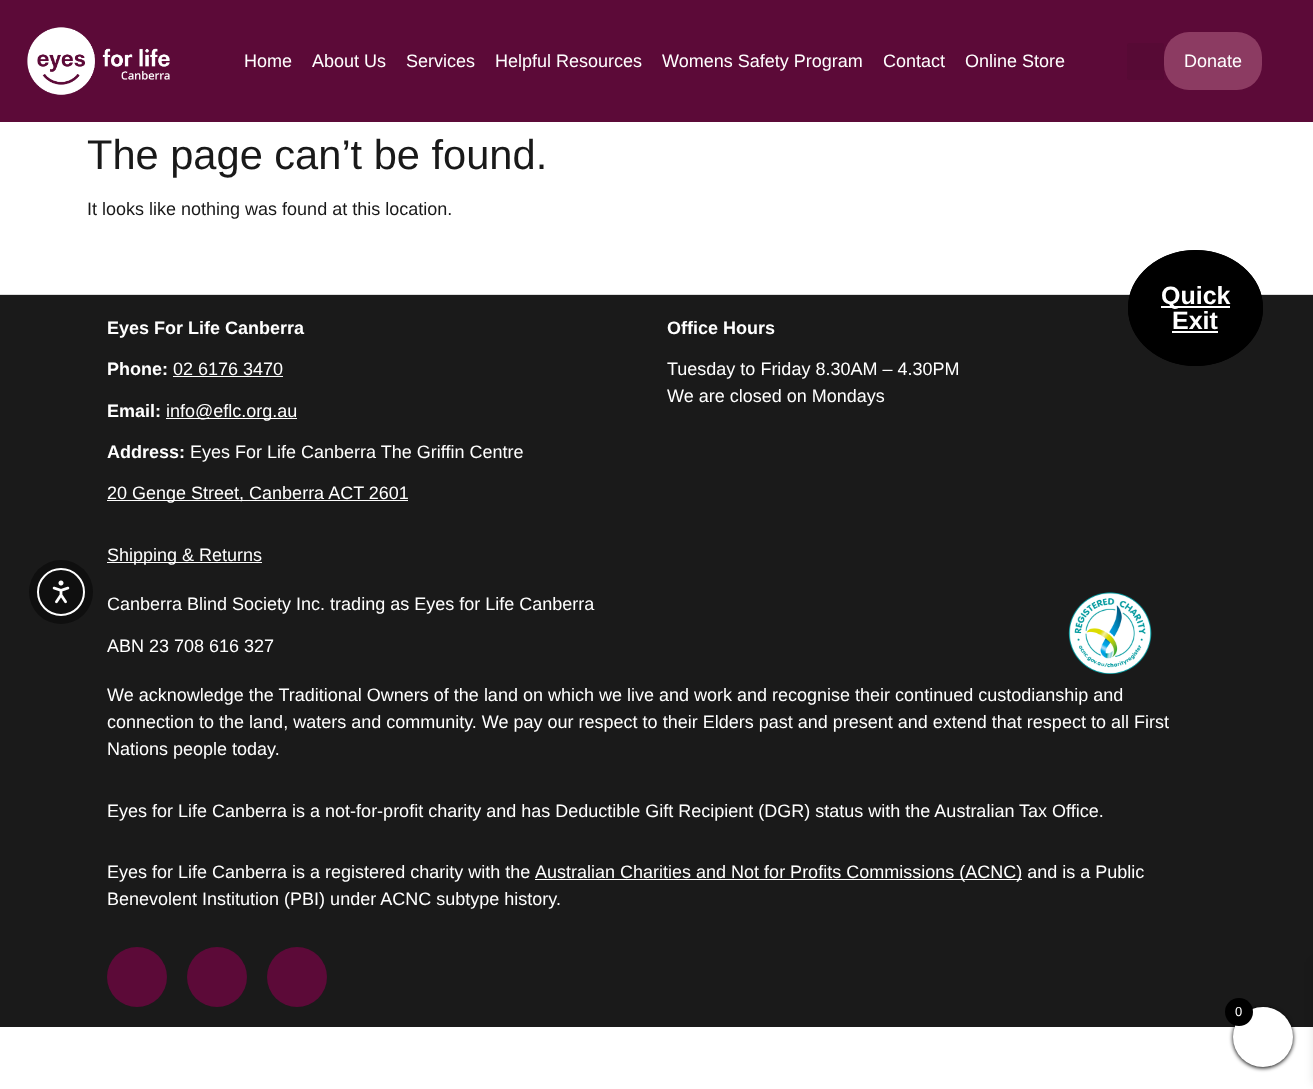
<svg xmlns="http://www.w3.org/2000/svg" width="1313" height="1089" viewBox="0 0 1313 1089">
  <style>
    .t1 { font: 18px Liberation Sans; fill: #fff; }
    .t2 { font: 41.6px Liberation Sans; fill: #191919; }
    .t3 { font: 18px Liberation Sans; fill: #191919; }
    .t4 { font: bold 25px Liberation Sans; fill: #fff; }
    .t5 { font: bold 18px Liberation Sans; fill: #fff; }
    .t6 { font: 13px Liberation Sans; fill: #fff; }
  </style>
  <rect width="100%" height="100%" fill="#fff"/>
  <rect x="0" y="0" width="1313" height="122" fill="#5c0a38"/>
  <image x="27" y="27" width="143" height="68" href="images/1.png"/>
  <text x="244" y="67" class="t1">Home</text>
  <text x="312" y="67" class="t1">About Us</text>
  <text x="406" y="67" class="t1">Services</text>
  <text x="495" y="67" class="t1">Helpful Resources</text>
  <text x="662" y="67" class="t1">Womens Safety Program</text>
  <text x="883" y="67" class="t1">Contact</text>
  <text x="965" y="67" class="t1">Online Store</text>
  <rect x="1127" y="43" width="37" height="37" rx="3" fill="#570a35"/>
  <rect x="1164" y="32" width="98" height="58" rx="25" fill="#8c3b62"/>
  <text x="1184" y="67" class="t1">Donate</text>
  <text x="87" y="169" class="t2">The page can’t be found.</text>
  <text x="87" y="215" class="t3">It looks like nothing was found at this location.</text>
  <rect x="0" y="295" width="1313" height="732" fill="#1a1a1a"/>
  <circle cx="61" cy="592" r="32" fill="#0f0f0f"/>
  <circle cx="61" cy="592" r="23" fill="none" stroke="#fff" stroke-width="2"/>
  <image x="52" y="580" width="18" height="24" href="images/2.png"/>
  <rect x="0" y="294" width="1313" height="1" fill="#ddd"/>
  <ellipse cx="1195.5" cy="308" rx="67.5" ry="58" fill="#000"/>
  <path d="M1195.5 251.5C1232 251.5 1261.5 277 1261.5 308C1261.5 339 1232 364.5 1195.5 364.5C1159 364.5 1129.5 339 1129.5 308C1129.5 277 1159 251.5 1195.5 251.5Z" fill="none" stroke="#000" stroke-width="3"/>
  <rect x="1161" y="306" width="69" height="2" fill="#fff"/>
  <text x="1161" y="304" class="t4">Quick</text>
  <text x="1172" y="329" class="t4">Exit</text>
  <rect x="1172" y="331" width="46" height="2" fill="#fff"/>
  <text x="107" y="334" class="t5">Eyes For Life Canberra</text>
  <text x="107" y="375" class="t5">Phone:</text>
  <text x="173" y="375" class="t1">02 6176 3470</text>
  <rect x="173" y="376" width="110" height="1" fill="#fff"/>
  <text x="107" y="417" class="t5">Email:</text>
  <rect x="166" y="418" width="131" height="1" fill="#fff"/>
  <text x="166" y="417" class="t1">info@eflc.org.au</text>
  <text x="107" y="458" class="t5">Address:</text>
  <text x="190" y="458" class="t1">Eyes For Life Canberra The Griffin Centre</text>
  <rect x="107" y="500" width="301" height="1" fill="#fff"/>
  <text x="107" y="499" class="t1">20 Genge Street, Canberra ACT 2601</text>
  <text x="667" y="334" class="t5">Office Hours</text>
  <text x="667" y="375" class="t1">Tuesday to Friday 8.30AM – 4.30PM</text>
  <text x="667" y="402" class="t1">We are closed on Mondays</text>
  <rect x="107" y="562" width="155" height="1" fill="#fff"/>
  <text x="107" y="561" class="t1">Shipping &amp; Returns</text>
  <text x="107" y="610" class="t1">Canberra Blind Society Inc. trading as Eyes for Life Canberra</text>
  <text x="107" y="652" class="t1">ABN 23 708 616 327</text>
  <image x="1068" y="592" width="84" height="82" href="images/3.png"/>
  <text x="107" y="701" class="t1">We acknowledge the Traditional Owners of the land on which we live and work and recognise their continued custodianship and</text>
  <text x="107" y="728" class="t1">connection to the land, waters and community. We pay our respect to their Elders past and present and extend that respect to all First</text>
  <text x="107" y="755" class="t1">Nations people today.</text>
  <text x="107" y="817" class="t1">Eyes for Life Canberra is a not-for-profit charity and has Deductible Gift Recipient (DGR) status with the Australian Tax Office.</text>
  <text x="107" y="878" class="t1">Eyes for Life Canberra is a registered charity with the</text>
  <rect x="535" y="879" width="487" height="1" fill="#fff"/>
  <text x="535" y="878" class="t1">Australian Charities and Not for Profits Commissions (ACNC) and is a Public</text>
  <text x="107" y="905" class="t1">Benevolent Institution (PBI) under ACNC subtype history.</text>
  <circle cx="137" cy="977" r="30" fill="#5c0a38"/>
  <circle cx="217" cy="977" r="30" fill="#5c0a38"/>
  <circle cx="297" cy="977" r="30" fill="#5c0a38"/>
  <rect x="1233" y="1008" width="60" height="60" rx="30" fill="#000" filter="blur(2px)"/>
  <circle cx="1263" cy="1037" r="30" fill="#fff"/>
  <circle cx="1239" cy="1012" r="14" fill="#000"/>
  <text x="1235" y="1016" class="t6">0</text>
  <rect x="1313" y="962" width="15" height="122" fill="#0000001a" filter="blur(5px)"/>
</svg>
